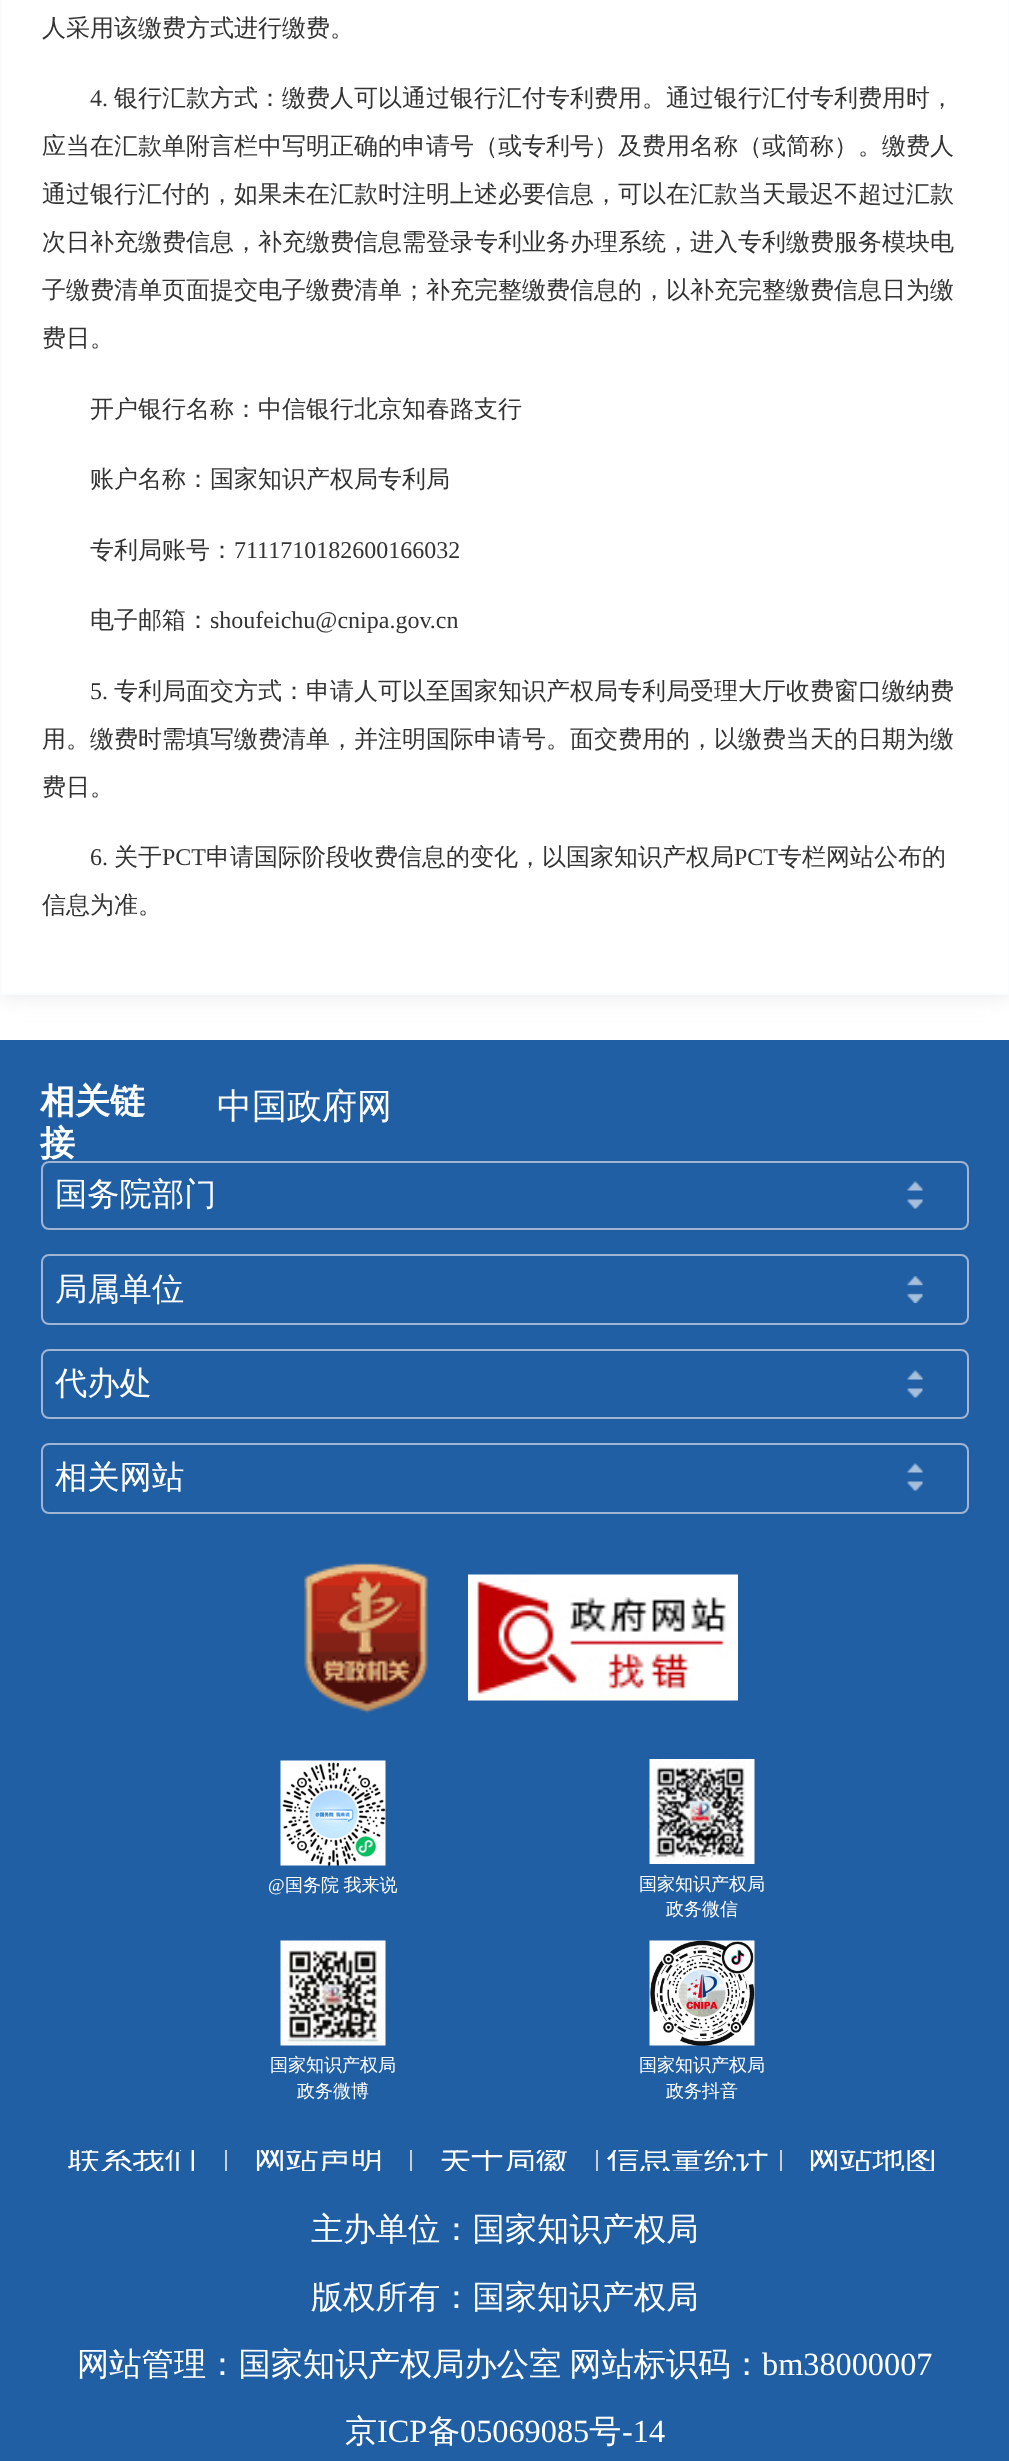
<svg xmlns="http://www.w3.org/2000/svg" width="1009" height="2461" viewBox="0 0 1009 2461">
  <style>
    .t1 { font: 500 24px WenQuanYi Zen Hei; fill: #333; }
    .t2 { font: 24px Liberation Serif; fill: #333; }
    .t3 { font: bold 35px WenQuanYi Zen Hei; fill: #fff; }
    .t4 { font: 500 35px WenQuanYi Zen Hei; fill: #fff; }
    .t5 { font: 500 32.3px WenQuanYi Zen Hei; fill: #fff; }
    .t6 { font: 18px Liberation Serif; fill: #fff; }
    .t7 { font: 500 18px WenQuanYi Zen Hei; fill: #fff; }
    .t8 { font: 32.3px Liberation Serif; fill: #fff; }
  </style>
  <defs>
    <clipPath id="clip1"><rect x="41" y="2150" width="928" height="21"/></clipPath>
  </defs>
  <rect width="100%" height="100%" fill="#fff"/>
  <rect x="0" y="-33" width="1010" height="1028" fill="#e6e6e6" filter="blur(11px)"/>
  <rect x="1" y="-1" width="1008" height="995" fill="#fff" stroke="#fbfcfd" stroke-width="2"/>
  <text x="42" y="36" class="t1">人采用该缴费方式进行缴费。</text>
  <text x="90" y="106" class="t2">4.</text>
  <text x="114" y="106" class="t1">银行汇款方式：缴费人可以通过银行汇付专利费用。通过银行汇付专利费用时，</text>
  <text x="42" y="154" class="t1">应当在汇款单附言栏中写明正确的申请号（或专利号）及费用名称（或简称）。缴费人</text>
  <text x="42" y="202" class="t1">通过银行汇付的，如果未在汇款时注明上述必要信息，可以在汇款当天最迟不超过汇款</text>
  <text x="42" y="250" class="t1">次日补充缴费信息，补充缴费信息需登录专利业务办理系统，进入专利缴费服务模块电</text>
  <text x="42" y="298" class="t1">子缴费清单页面提交电子缴费清单；补充完整缴费信息的，以补充完整缴费信息日为缴</text>
  <text x="42" y="346" class="t1">费日。</text>
  <text x="90" y="417" class="t1">开户银行名称：中信银行北京知春路支行</text>
  <text x="90" y="487" class="t1">账户名称：国家知识产权局专利局</text>
  <text x="90" y="558" class="t1">专利局账号：</text>
  <text x="234" y="558" class="t2">7111710182600166032</text>
  <text x="90" y="628" class="t1">电子邮箱：</text>
  <text x="210" y="628" class="t2">shoufeichu@cnipa.gov.cn</text>
  <text x="90" y="699" class="t2">5.</text>
  <text x="114" y="699" class="t1">专利局面交方式：申请人可以至国家知识产权局专利局受理大厅收费窗口缴纳费</text>
  <text x="42" y="747" class="t1">用。缴费时需填写缴费清单，并注明国际申请号。面交费用的，以缴费当天的日期为缴</text>
  <text x="42" y="795" class="t1">费日。</text>
  <text x="90" y="865" class="t2">6.</text>
  <text x="114" y="865" class="t1">关于</text>
  <text x="162" y="865" class="t2">PCT</text>
  <text x="206" y="865" class="t1">申请国际阶段收费信息的变化，以国家知识产权局</text>
  <text x="734" y="865" class="t2">PCT</text>
  <text x="778" y="865" class="t1">专栏网站公布的</text>
  <text x="42" y="913" class="t1">信息为准。</text>
  <rect x="0" y="1040" width="1009" height="1421" fill="#215fa4"/>
  <text x="40" y="1113" class="t3">相关链</text>
  <text x="40" y="1155" class="t3">接</text>
  <text x="217" y="1118" class="t4">中国政府网</text>
  <image x="907" y="1181" width="16" height="28" href="images/1.png"/>
  <rect x="42" y="1162" width="926" height="67" rx="7" fill="none" stroke="#a1b4d3" stroke-width="2"/>
  <text x="55" y="1205" class="t5">国务院部门</text>
  <image x="907" y="1276" width="16" height="27" href="images/2.png"/>
  <rect x="42" y="1255" width="926" height="69" rx="7" fill="none" stroke="#a1b4d3" stroke-width="2"/>
  <text x="55" y="1300" class="t5">局属单位</text>
  <image x="907" y="1370" width="16" height="28" href="images/1.png"/>
  <rect x="42" y="1350" width="926" height="68" rx="7" fill="none" stroke="#a1b4d3" stroke-width="2"/>
  <text x="55" y="1394" class="t5">代办处</text>
  <image x="907" y="1463" width="16" height="28" href="images/1.png"/>
  <rect x="42" y="1444" width="926" height="69" rx="7" fill="none" stroke="#a1b4d3" stroke-width="2"/>
  <text x="55" y="1488" class="t5">相关网站</text>
  <image x="304" y="1562" width="125" height="152" href="images/3.png"/>
  <image x="468" y="1574" width="270" height="127" href="images/4.png"/>
  <image x="280" y="1760" width="106" height="106" href="images/5.png"/>
  <text x="268" y="1891" class="t6">@</text>
  <text x="285" y="1891" word-spacing="-1" class="t7">国务院 我来说</text>
  <image x="649" y="1759" width="106" height="105" href="images/6.png"/>
  <text x="639" y="1890" class="t7">国家知识产权局</text>
  <text x="666" y="1915" class="t7">政务微信</text>
  <image x="280" y="1940" width="106" height="106" href="images/7.png"/>
  <text x="270" y="2071" class="t7">国家知识产权局</text>
  <text x="297" y="2097" class="t7">政务微博</text>
  <image x="649" y="1940" width="106" height="106" href="images/8.png"/>
  <text x="639" y="2071" class="t7">国家知识产权局</text>
  <text x="666" y="2097" class="t7">政务抖音</text>
  <g clip-path="url(#clip1)">
    <text x="68" y="2170" class="t5">联系我们</text>
  </g>
  <rect x="225" y="2150" width="2" height="21" fill="#ccc"/>
  <g clip-path="url(#clip1)">
    <text x="254" y="2170" class="t5">网站声明</text>
  </g>
  <rect x="410" y="2150" width="2" height="21" fill="#ccc"/>
  <g clip-path="url(#clip1)">
    <text x="439" y="2170" class="t5">关于局徽</text>
  </g>
  <rect x="596" y="2150" width="2" height="21" fill="#ccc"/>
  <g clip-path="url(#clip1)">
    <text x="607" y="2170" class="t5">信息量统计</text>
  </g>
  <rect x="780" y="2150" width="2" height="21" fill="#ccc"/>
  <g clip-path="url(#clip1)">
    <text x="808" y="2170" class="t5">网站地图</text>
  </g>
  <text x="311" y="2240" class="t5">主办单位：国家知识产权局</text>
  <text x="311" y="2308" class="t5">版权所有：国家知识产权局</text>
  <text x="77" y="2375" word-spacing="-2" class="t5">网站管理：国家知识产权局办公室 网站标识码：</text>
  <text x="762" y="2375" class="t8">bm38000007</text>
  <text x="345" y="2442" class="t5">京</text>
  <text x="377" y="2442" class="t8">ICP</text>
  <text x="428" y="2442" class="t5">备</text>
  <text x="460" y="2442" class="t8">05069085</text>
  <text x="589" y="2442" class="t5">号</text>
  <text x="622" y="2442" class="t8">-14</text>
</svg>
